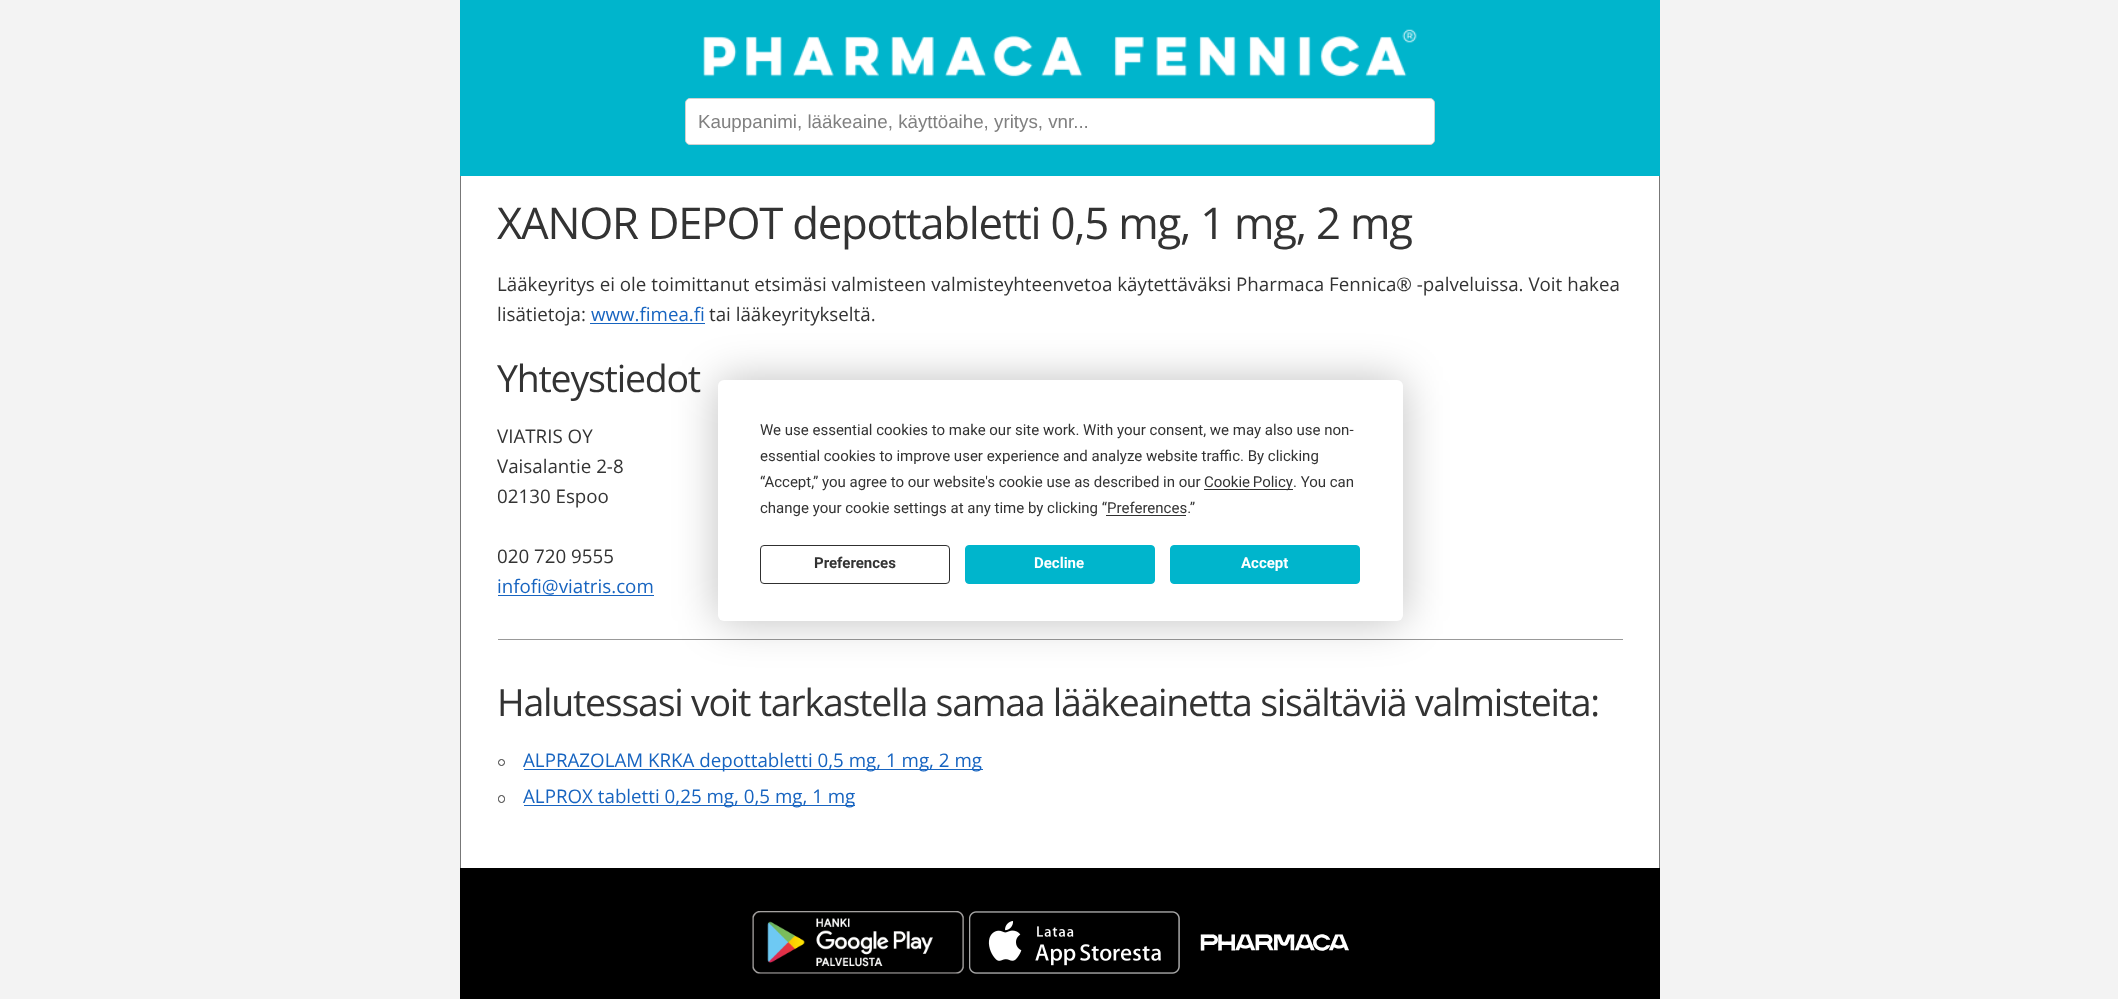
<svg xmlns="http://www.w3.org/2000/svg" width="2118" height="999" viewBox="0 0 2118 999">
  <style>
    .t1 { font: 18.75px Liberation Sans; fill: #808080; }
    .t2 { font: 43.75px Open Sans; letter-spacing: -1.25px; fill: #333; }
    .t3 { font: 18.75px Open Sans; fill: #333; }
    .t4 { font: 18.75px Open Sans; fill: #1764c0; }
    .t5 { font: 37.5px Open Sans; letter-spacing: -1.25px; fill: #333; }
    .t6 { font: 15px Roboto; fill: #333; }
    .t7 { font: bold 15px Roboto; fill: #333; }
    .t8 { font: bold 15px Roboto; fill: #fff; }
  </style>
  <rect width="100%" height="100%" fill="#f3f3f3"/>
  <rect x="460" y="0" width="1200" height="176" fill="#00b5cc"/>
  <image x="703" y="29" width="714" height="48" href="images/1.png"/>
  <rect x="685.5" y="98.5" width="749" height="46" rx="4.5" fill="#fff" stroke="#d1d1d1"/>
  <text x="698" y="128" class="t1">Kauppanimi, lääkeaine, käyttöaihe, yritys, vnr...</text>
  <rect x="461" y="176" width="1198" height="692" fill="#fff"/>
  <rect x="1659" y="176" width="1" height="692" fill="#777"/>
  <rect x="460" y="176" width="1" height="692" fill="#777"/>
  <text x="497" y="239" class="t2">XANOR DEPOT depottabletti 0,5 mg, 1 mg, 2 mg</text>
  <text x="497" y="291" class="t3">Lääkeyritys ei ole toimittanut etsimäsi valmisteen valmisteyhteenvetoa käytettäväksi Pharmaca Fennica® -palveluissa. Voit hakea</text>
  <text x="497" y="321" class="t3">lisätietoja:</text>
  <text x="591" y="321" class="t4">www.fimea.fi</text>
  <rect x="590" y="323" width="115" height="1" fill="#1764c0"/>
  <text x="709" y="321" class="t3">tai lääkeyritykseltä.</text>
  <text x="497" y="392" class="t5">Yhteystiedot</text>
  <text x="497" y="443" class="t3">VIATRIS OY</text>
  <text x="497" y="473" class="t3">Vaisalantie 2-8</text>
  <text x="497" y="503" class="t3">02130 Espoo</text>
  <text x="497" y="563" class="t3">020 720 9555</text>
  <text x="497" y="593" class="t4">infofi@viatris.com</text>
  <rect x="498" y="595" width="156" height="1" fill="#1764c0"/>
  <rect x="498" y="639" width="1125" height="1" fill="#999"/>
  <text x="497" y="716" class="t5">Halutessasi voit tarkastella samaa lääkeainetta sisältäviä valmisteita:</text>
  <circle cx="501.5" cy="762.5" r="3" fill="none" stroke="#333"/>
  <rect x="524" y="769" width="459" height="1" fill="#1764c0"/>
  <text x="523" y="767" class="t4">ALPRAZOLAM KRKA depottabletti 0,5 mg, 1 mg, 2 mg</text>
  <rect x="498.5" y="795.5" width="6" height="7" rx="3" fill="none" stroke="#333"/>
  <rect x="524" y="805" width="331" height="1" fill="#1764c0"/>
  <text x="523" y="803" class="t4">ALPROX tabletti 0,25 mg, 0,5 mg, 1 mg</text>
  <rect x="460" y="868" width="1200" height="131" fill="#000"/>
  <image x="752" y="911" width="212" height="63" href="images/2.png"/>
  <image x="969" y="911" width="211" height="63" href="images/3.png"/>
  <image x="1200" y="934" width="149" height="17" href="images/4.png"/>
  <rect x="718" y="380" width="685" height="241" rx="6" fill="#00000040" filter="blur(22px)"/>
  <rect x="718" y="380" width="685" height="241" rx="6" fill="#fff"/>
  <text x="760" y="435" class="t6">We use essential cookies to make our site work. With your consent, we may also use non-</text>
  <text x="760" y="461" class="t6">essential cookies to improve user experience and analyze website traffic. By clicking</text>
  <text x="760" y="487" class="t6">“Accept,” you agree to our website's cookie use as described in our</text>
  <rect x="1204" y="489" width="89" height="1" fill="#303030"/>
  <text x="1204" y="487" word-spacing="-1" class="t6">Cookie Policy</text>
  <text x="1293" y="487" class="t6">. You can</text>
  <text x="760" y="513" class="t6">change your cookie settings at any time by clicking “Preferences.”</text>
  <rect x="1106" y="515" width="80" height="1" fill="#303030"/>
  <rect x="760.5" y="545.5" width="189" height="38" rx="3.5" fill="none" stroke="#303030"/>
  <text x="814" y="568" class="t7">Preferences</text>
  <rect x="965.5" y="545.5" width="189" height="38" rx="3.5" fill="#00b5cc" stroke="#00b5cc"/>
  <text x="1034" y="568" class="t8">Decline</text>
  <rect x="1170.5" y="545.5" width="189" height="38" rx="3.5" fill="#00b5cc" stroke="#00b5cc"/>
  <text x="1241" y="568" class="t8">Accept</text>
</svg>
